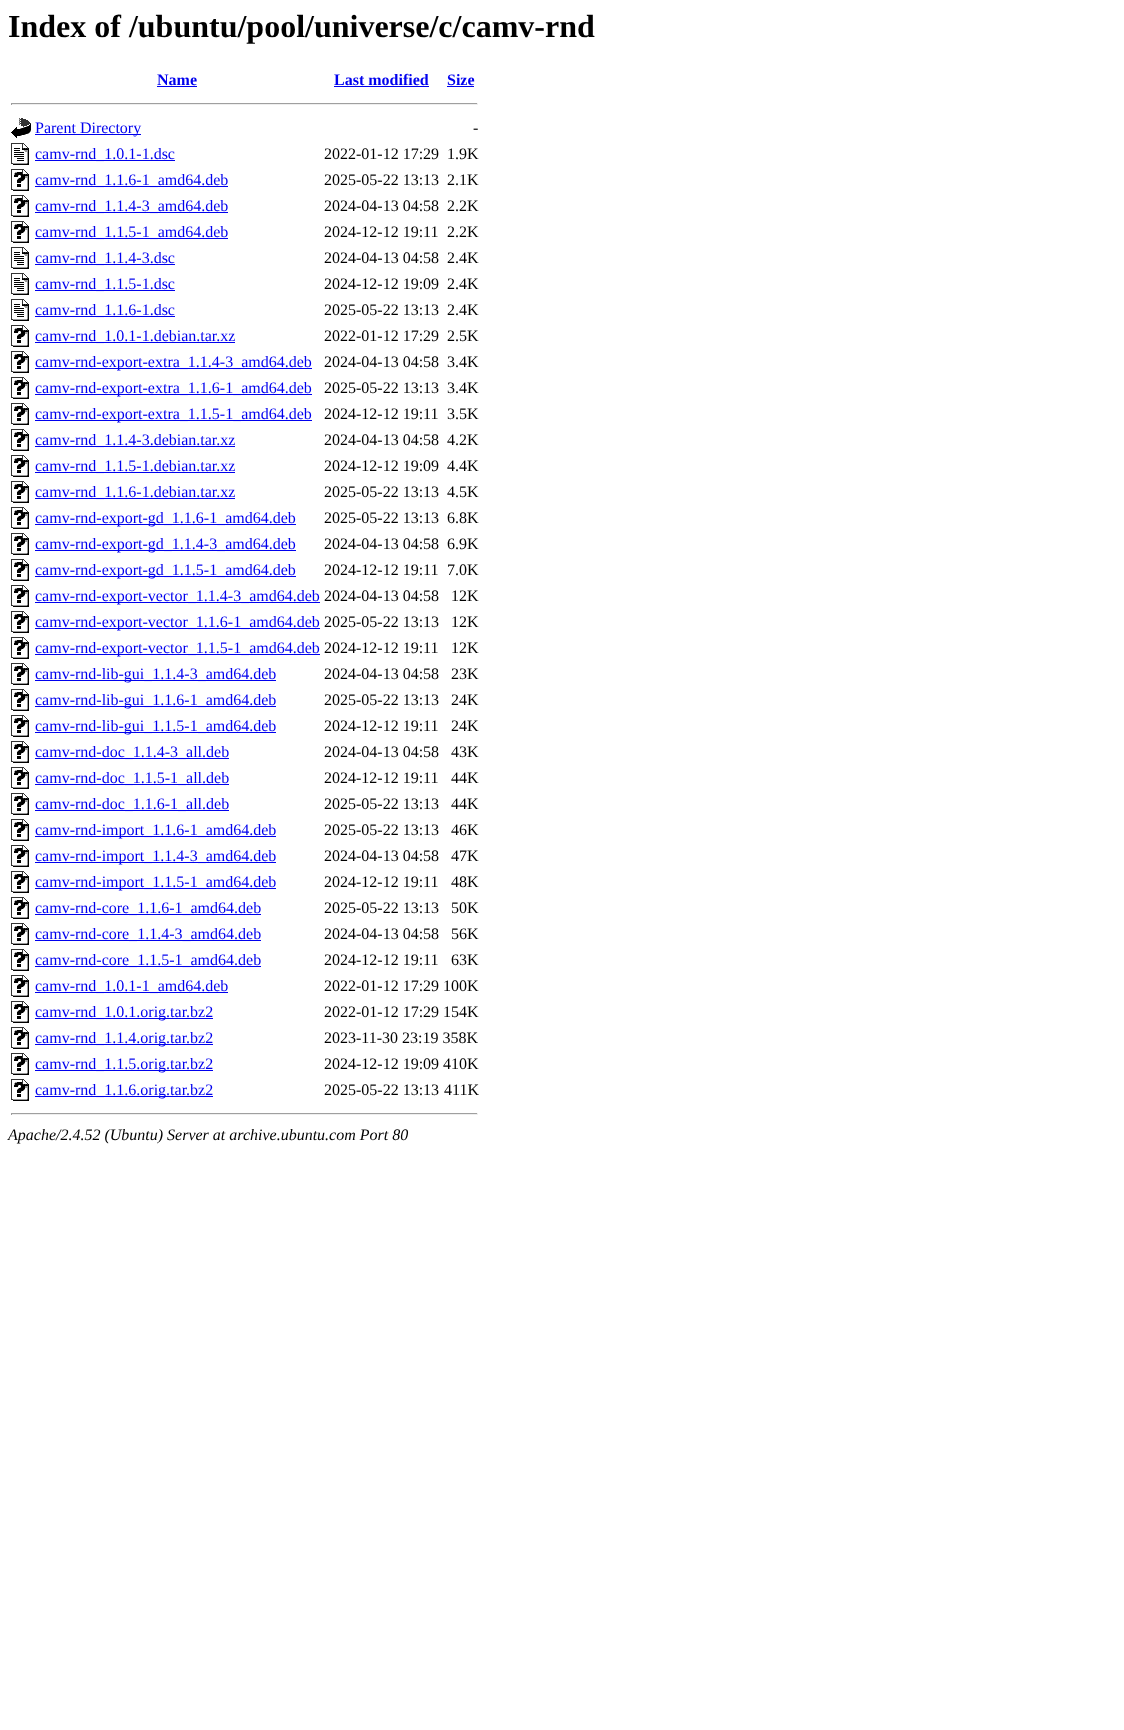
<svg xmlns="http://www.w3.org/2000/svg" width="1124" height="1730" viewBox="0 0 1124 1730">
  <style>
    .t1 { font: bold 32px Liberation Serif; fill: #000; }
    .t2 { font: bold 16px Liberation Serif; fill: #00e; }
    .t3 { font: 16px Liberation Serif; fill: #00e; }
    .t4 { font: 16px Liberation Serif; fill: #000; }
    .t5 { font: italic 16px Liberation Serif; fill: #000; }
  </style>
  <rect width="100%" height="100%" fill="#fff"/>
  <text x="8" y="37" class="t1">Index of /ubuntu/pool/universe/c/camv-rnd</text>
  <text x="157" y="85" class="t2">Name</text>
  <rect x="157" y="86" width="40" height="1" fill="#00e"/>
  <text x="334" y="85" class="t2">Last modified</text>
  <rect x="334" y="86" width="95" height="1" fill="#00e"/>
  <text x="447" y="85" class="t2">Size</text>
  <rect x="447" y="86" width="27" height="1" fill="#00e"/>
  <rect x="11" y="103" width="467" height="1" fill="#9f9f9f"/>
  <rect x="477" y="103" width="1" height="2" fill="#eee"/>
  <rect x="11" y="104" width="467" height="1" fill="#eee"/>
  <rect x="11" y="103" width="1" height="2" fill="#9f9f9f"/>
  <image x="11" y="118" width="20" height="20" href="images/1.png"/>
  <rect x="35" y="134" width="106" height="1" fill="#00e"/>
  <text x="35" y="133" class="t3">Parent Directory</text>
  <text x="473" y="133" class="t4">-</text>
  <image x="11" y="143" width="18" height="22" href="images/2.png"/>
  <rect x="35" y="160" width="140" height="1" fill="#00e"/>
  <text x="35" y="159" class="t3">camv-rnd_1.0.1-1.dsc</text>
  <text x="324" y="159" class="t4">2022-01-12 17:29</text>
  <text x="447" y="159" class="t4">1.9K</text>
  <image x="11" y="169" width="18" height="22" href="images/3.png"/>
  <rect x="35" y="186" width="193" height="1" fill="#00e"/>
  <text x="35" y="185" class="t3">camv-rnd_1.1.6-1_amd64.deb</text>
  <text x="324" y="185" class="t4">2025-05-22 13:13</text>
  <text x="447" y="185" class="t4">2.1K</text>
  <image x="11" y="195" width="18" height="22" href="images/3.png"/>
  <rect x="35" y="212" width="193" height="1" fill="#00e"/>
  <text x="35" y="211" class="t3">camv-rnd_1.1.4-3_amd64.deb</text>
  <text x="324" y="211" class="t4">2024-04-13 04:58</text>
  <text x="447" y="211" class="t4">2.2K</text>
  <image x="11" y="221" width="18" height="22" href="images/3.png"/>
  <rect x="35" y="238" width="193" height="1" fill="#00e"/>
  <text x="35" y="237" class="t3">camv-rnd_1.1.5-1_amd64.deb</text>
  <text x="324" y="237" class="t4">2024-12-12 19:11</text>
  <text x="447" y="237" class="t4">2.2K</text>
  <image x="11" y="247" width="18" height="22" href="images/2.png"/>
  <rect x="35" y="264" width="140" height="1" fill="#00e"/>
  <text x="35" y="263" class="t3">camv-rnd_1.1.4-3.dsc</text>
  <text x="324" y="263" class="t4">2024-04-13 04:58</text>
  <text x="447" y="263" class="t4">2.4K</text>
  <image x="11" y="273" width="18" height="22" href="images/2.png"/>
  <rect x="35" y="290" width="140" height="1" fill="#00e"/>
  <text x="35" y="289" class="t3">camv-rnd_1.1.5-1.dsc</text>
  <text x="324" y="289" class="t4">2024-12-12 19:09</text>
  <text x="447" y="289" class="t4">2.4K</text>
  <image x="11" y="299" width="18" height="22" href="images/2.png"/>
  <rect x="35" y="316" width="140" height="1" fill="#00e"/>
  <text x="35" y="315" class="t3">camv-rnd_1.1.6-1.dsc</text>
  <text x="324" y="315" class="t4">2025-05-22 13:13</text>
  <text x="447" y="315" class="t4">2.4K</text>
  <image x="11" y="325" width="18" height="22" href="images/3.png"/>
  <rect x="35" y="342" width="200" height="1" fill="#00e"/>
  <text x="35" y="341" class="t3">camv-rnd_1.0.1-1.debian.tar.xz</text>
  <text x="324" y="341" class="t4">2022-01-12 17:29</text>
  <text x="447" y="341" class="t4">2.5K</text>
  <image x="11" y="351" width="18" height="22" href="images/3.png"/>
  <rect x="35" y="368" width="277" height="1" fill="#00e"/>
  <text x="35" y="367" class="t3">camv-rnd-export-extra_1.1.4-3_amd64.deb</text>
  <text x="324" y="367" class="t4">2024-04-13 04:58</text>
  <text x="447" y="367" class="t4">3.4K</text>
  <image x="11" y="377" width="18" height="22" href="images/3.png"/>
  <rect x="35" y="394" width="277" height="1" fill="#00e"/>
  <text x="35" y="393" class="t3">camv-rnd-export-extra_1.1.6-1_amd64.deb</text>
  <text x="324" y="393" class="t4">2025-05-22 13:13</text>
  <text x="447" y="393" class="t4">3.4K</text>
  <image x="11" y="403" width="18" height="22" href="images/3.png"/>
  <rect x="35" y="420" width="277" height="1" fill="#00e"/>
  <text x="35" y="419" class="t3">camv-rnd-export-extra_1.1.5-1_amd64.deb</text>
  <text x="324" y="419" class="t4">2024-12-12 19:11</text>
  <text x="447" y="419" class="t4">3.5K</text>
  <image x="11" y="429" width="18" height="22" href="images/3.png"/>
  <rect x="35" y="446" width="200" height="1" fill="#00e"/>
  <text x="35" y="445" class="t3">camv-rnd_1.1.4-3.debian.tar.xz</text>
  <text x="324" y="445" class="t4">2024-04-13 04:58</text>
  <text x="447" y="445" class="t4">4.2K</text>
  <image x="11" y="455" width="18" height="22" href="images/3.png"/>
  <rect x="35" y="472" width="200" height="1" fill="#00e"/>
  <text x="35" y="471" class="t3">camv-rnd_1.1.5-1.debian.tar.xz</text>
  <text x="324" y="471" class="t4">2024-12-12 19:09</text>
  <text x="447" y="471" class="t4">4.4K</text>
  <image x="11" y="481" width="18" height="22" href="images/3.png"/>
  <rect x="35" y="498" width="200" height="1" fill="#00e"/>
  <text x="35" y="497" class="t3">camv-rnd_1.1.6-1.debian.tar.xz</text>
  <text x="324" y="497" class="t4">2025-05-22 13:13</text>
  <text x="447" y="497" class="t4">4.5K</text>
  <image x="11" y="507" width="18" height="22" href="images/3.png"/>
  <rect x="35" y="524" width="261" height="1" fill="#00e"/>
  <text x="35" y="523" class="t3">camv-rnd-export-gd_1.1.6-1_amd64.deb</text>
  <text x="324" y="523" class="t4">2025-05-22 13:13</text>
  <text x="447" y="523" class="t4">6.8K</text>
  <image x="11" y="533" width="18" height="22" href="images/3.png"/>
  <rect x="35" y="550" width="261" height="1" fill="#00e"/>
  <text x="35" y="549" class="t3">camv-rnd-export-gd_1.1.4-3_amd64.deb</text>
  <text x="324" y="549" class="t4">2024-04-13 04:58</text>
  <text x="447" y="549" class="t4">6.9K</text>
  <image x="11" y="559" width="18" height="22" href="images/3.png"/>
  <rect x="35" y="576" width="261" height="1" fill="#00e"/>
  <text x="35" y="575" class="t3">camv-rnd-export-gd_1.1.5-1_amd64.deb</text>
  <text x="324" y="575" class="t4">2024-12-12 19:11</text>
  <text x="447" y="575" class="t4">7.0K</text>
  <image x="11" y="585" width="18" height="22" href="images/3.png"/>
  <rect x="35" y="602" width="285" height="1" fill="#00e"/>
  <text x="35" y="601" class="t3">camv-rnd-export-vector_1.1.4-3_amd64.deb</text>
  <text x="324" y="601" class="t4">2024-04-13 04:58</text>
  <text x="451" y="601" class="t4">12K</text>
  <image x="11" y="611" width="18" height="22" href="images/3.png"/>
  <rect x="35" y="628" width="285" height="1" fill="#00e"/>
  <text x="35" y="627" class="t3">camv-rnd-export-vector_1.1.6-1_amd64.deb</text>
  <text x="324" y="627" class="t4">2025-05-22 13:13</text>
  <text x="451" y="627" class="t4">12K</text>
  <image x="11" y="637" width="18" height="22" href="images/3.png"/>
  <rect x="35" y="654" width="285" height="1" fill="#00e"/>
  <text x="35" y="653" class="t3">camv-rnd-export-vector_1.1.5-1_amd64.deb</text>
  <text x="324" y="653" class="t4">2024-12-12 19:11</text>
  <text x="451" y="653" class="t4">12K</text>
  <image x="11" y="663" width="18" height="22" href="images/3.png"/>
  <rect x="35" y="680" width="241" height="1" fill="#00e"/>
  <text x="35" y="679" class="t3">camv-rnd-lib-gui_1.1.4-3_amd64.deb</text>
  <text x="324" y="679" class="t4">2024-04-13 04:58</text>
  <text x="451" y="679" class="t4">23K</text>
  <image x="11" y="689" width="18" height="22" href="images/3.png"/>
  <rect x="35" y="706" width="241" height="1" fill="#00e"/>
  <text x="35" y="705" class="t3">camv-rnd-lib-gui_1.1.6-1_amd64.deb</text>
  <text x="324" y="705" class="t4">2025-05-22 13:13</text>
  <text x="451" y="705" class="t4">24K</text>
  <image x="11" y="715" width="18" height="22" href="images/3.png"/>
  <rect x="35" y="732" width="241" height="1" fill="#00e"/>
  <text x="35" y="731" class="t3">camv-rnd-lib-gui_1.1.5-1_amd64.deb</text>
  <text x="324" y="731" class="t4">2024-12-12 19:11</text>
  <text x="451" y="731" class="t4">24K</text>
  <image x="11" y="741" width="18" height="22" href="images/3.png"/>
  <rect x="35" y="758" width="194" height="1" fill="#00e"/>
  <text x="35" y="757" class="t3">camv-rnd-doc_1.1.4-3_all.deb</text>
  <text x="324" y="757" class="t4">2024-04-13 04:58</text>
  <text x="451" y="757" class="t4">43K</text>
  <image x="11" y="767" width="18" height="22" href="images/3.png"/>
  <rect x="35" y="784" width="194" height="1" fill="#00e"/>
  <text x="35" y="783" class="t3">camv-rnd-doc_1.1.5-1_all.deb</text>
  <text x="324" y="783" class="t4">2024-12-12 19:11</text>
  <text x="451" y="783" class="t4">44K</text>
  <image x="11" y="793" width="18" height="22" href="images/3.png"/>
  <rect x="35" y="810" width="194" height="1" fill="#00e"/>
  <text x="35" y="809" class="t3">camv-rnd-doc_1.1.6-1_all.deb</text>
  <text x="324" y="809" class="t4">2025-05-22 13:13</text>
  <text x="451" y="809" class="t4">44K</text>
  <image x="11" y="819" width="18" height="22" href="images/3.png"/>
  <rect x="35" y="836" width="241" height="1" fill="#00e"/>
  <text x="35" y="835" class="t3">camv-rnd-import_1.1.6-1_amd64.deb</text>
  <text x="324" y="835" class="t4">2025-05-22 13:13</text>
  <text x="451" y="835" class="t4">46K</text>
  <image x="11" y="845" width="18" height="22" href="images/3.png"/>
  <rect x="35" y="862" width="241" height="1" fill="#00e"/>
  <text x="35" y="861" class="t3">camv-rnd-import_1.1.4-3_amd64.deb</text>
  <text x="324" y="861" class="t4">2024-04-13 04:58</text>
  <text x="451" y="861" class="t4">47K</text>
  <image x="11" y="871" width="18" height="22" href="images/3.png"/>
  <rect x="35" y="888" width="241" height="1" fill="#00e"/>
  <text x="35" y="887" class="t3">camv-rnd-import_1.1.5-1_amd64.deb</text>
  <text x="324" y="887" class="t4">2024-12-12 19:11</text>
  <text x="451" y="887" class="t4">48K</text>
  <image x="11" y="897" width="18" height="22" href="images/3.png"/>
  <rect x="35" y="914" width="226" height="1" fill="#00e"/>
  <text x="35" y="913" class="t3">camv-rnd-core_1.1.6-1_amd64.deb</text>
  <text x="324" y="913" class="t4">2025-05-22 13:13</text>
  <text x="451" y="913" class="t4">50K</text>
  <image x="11" y="923" width="18" height="22" href="images/3.png"/>
  <rect x="35" y="940" width="226" height="1" fill="#00e"/>
  <text x="35" y="939" class="t3">camv-rnd-core_1.1.4-3_amd64.deb</text>
  <text x="324" y="939" class="t4">2024-04-13 04:58</text>
  <text x="451" y="939" class="t4">56K</text>
  <image x="11" y="949" width="18" height="22" href="images/3.png"/>
  <rect x="35" y="966" width="226" height="1" fill="#00e"/>
  <text x="35" y="965" class="t3">camv-rnd-core_1.1.5-1_amd64.deb</text>
  <text x="324" y="965" class="t4">2024-12-12 19:11</text>
  <text x="451" y="965" class="t4">63K</text>
  <image x="11" y="975" width="18" height="22" href="images/3.png"/>
  <rect x="35" y="992" width="193" height="1" fill="#00e"/>
  <text x="35" y="991" class="t3">camv-rnd_1.0.1-1_amd64.deb</text>
  <text x="324" y="991" class="t4">2022-01-12 17:29 100K</text>
  <image x="11" y="1001" width="18" height="22" href="images/3.png"/>
  <rect x="35" y="1018" width="178" height="1" fill="#00e"/>
  <text x="35" y="1017" class="t3">camv-rnd_1.0.1.orig.tar.bz2</text>
  <text x="324" y="1017" class="t4">2022-01-12 17:29 154K</text>
  <image x="11" y="1027" width="18" height="22" href="images/3.png"/>
  <rect x="35" y="1044" width="178" height="1" fill="#00e"/>
  <text x="35" y="1043" class="t3">camv-rnd_1.1.4.orig.tar.bz2</text>
  <text x="324" y="1043" class="t4">2023-11-30 23:19 358K</text>
  <image x="11" y="1053" width="18" height="22" href="images/3.png"/>
  <rect x="35" y="1070" width="178" height="1" fill="#00e"/>
  <text x="35" y="1069" class="t3">camv-rnd_1.1.5.orig.tar.bz2</text>
  <text x="324" y="1069" class="t4">2024-12-12 19:09 410K</text>
  <image x="11" y="1079" width="18" height="22" href="images/3.png"/>
  <rect x="35" y="1096" width="178" height="1" fill="#00e"/>
  <text x="35" y="1095" class="t3">camv-rnd_1.1.6.orig.tar.bz2</text>
  <text x="324" y="1095" class="t4">2025-05-22 13:13</text>
  <text x="444" y="1095" class="t4">411K</text>
  <rect x="11" y="1113" width="467" height="1" fill="#9f9f9f"/>
  <rect x="477" y="1113" width="1" height="2" fill="#eee"/>
  <rect x="11" y="1114" width="467" height="1" fill="#eee"/>
  <rect x="11" y="1113" width="1" height="2" fill="#9f9f9f"/>
  <text x="8" y="1140" class="t5">Apache/2.4.52 (Ubuntu) Server at archive.ubuntu.com Port 80</text>
</svg>
